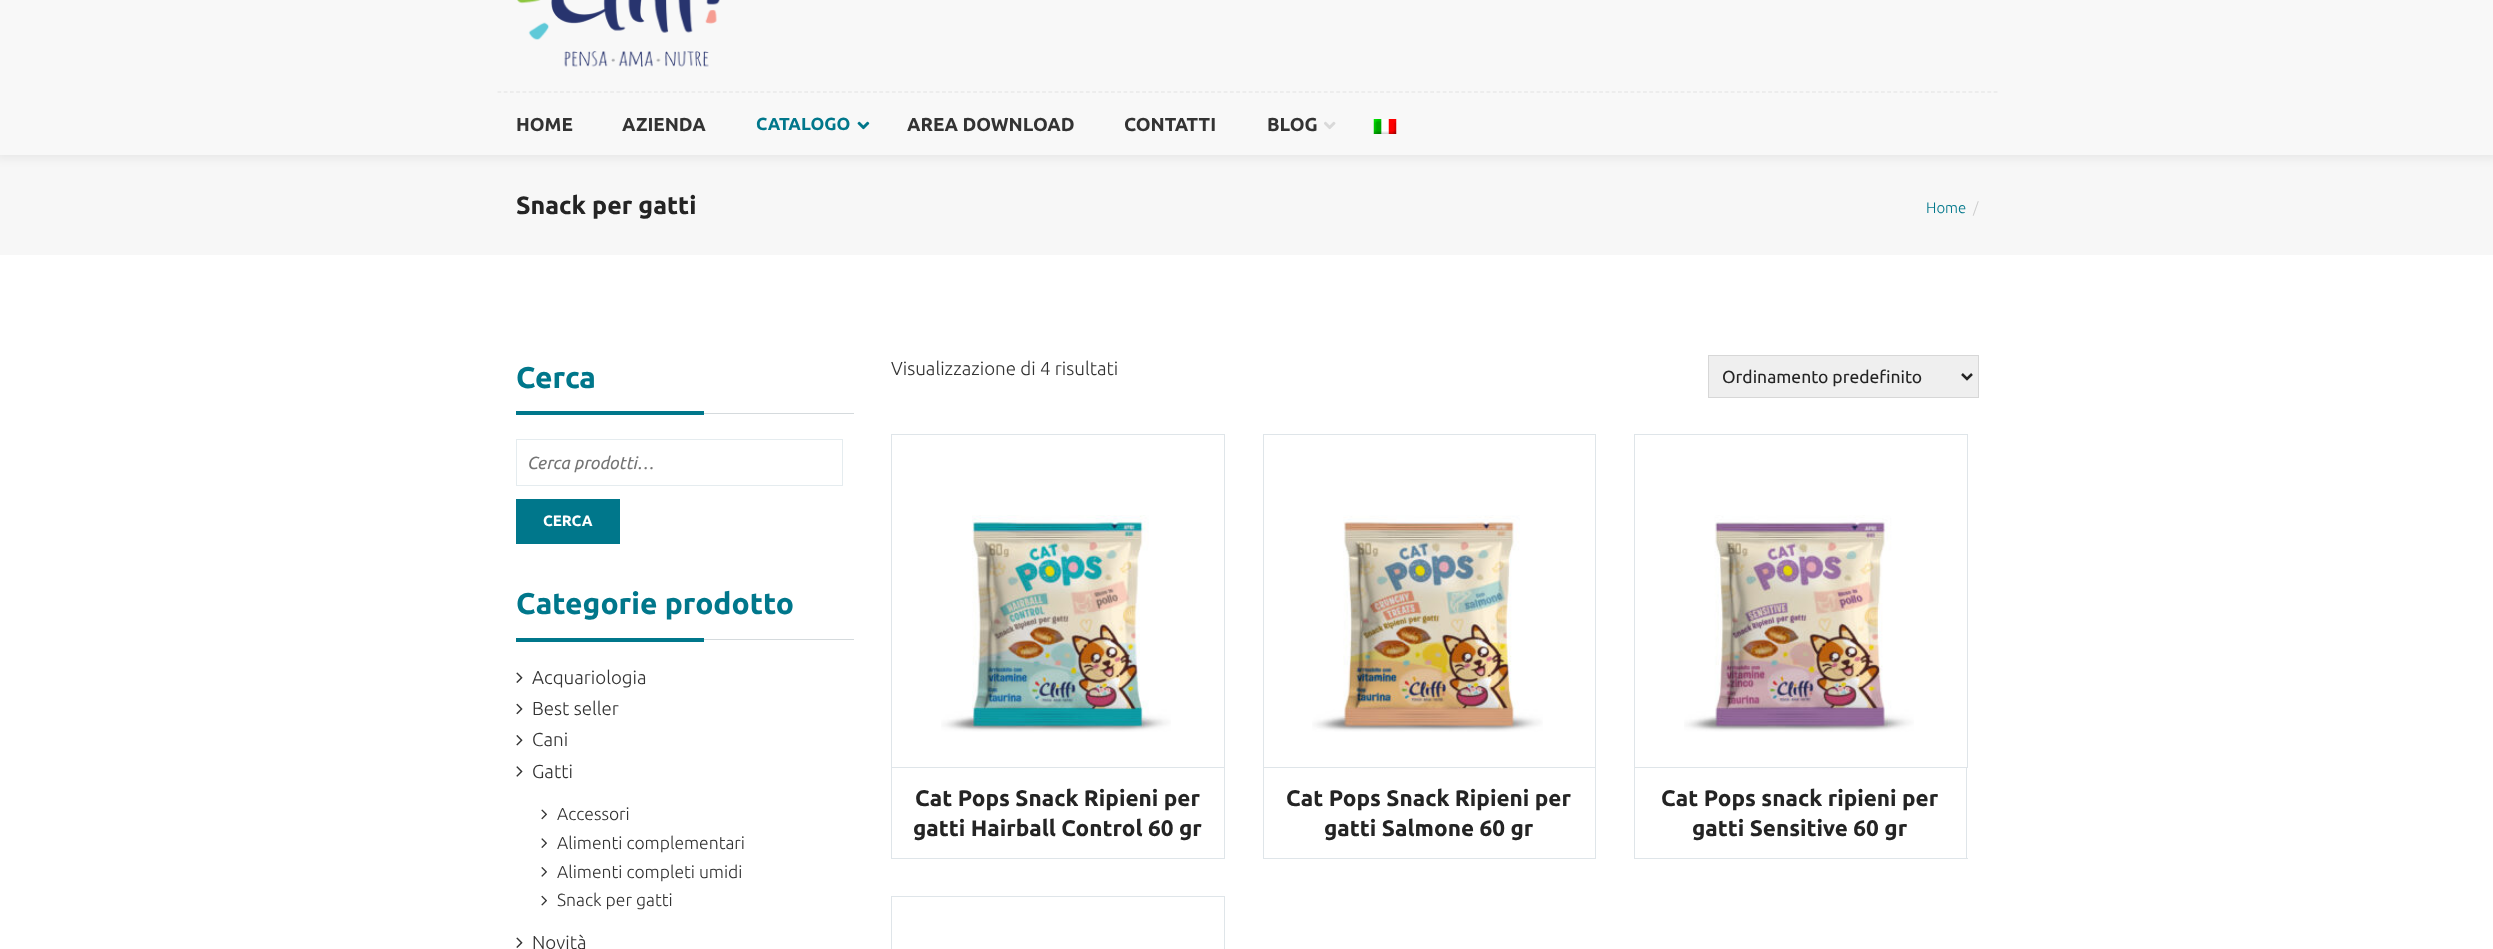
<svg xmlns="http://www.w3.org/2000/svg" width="2493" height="949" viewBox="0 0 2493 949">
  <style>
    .t1 { font: bold 18.75px Ubuntu; fill: #333; }
    .t2 { font: bold 17.5px Ubuntu; fill: #00778b; }
    .t3 { font: bold 25px Ubuntu; fill: #242424; }
    .t4 { font: 300 15px Ubuntu; fill: #00778b; }
    .t5 { font: 300 15px Ubuntu; fill: #ccc; }
    .t6 { font: bold 30px Ubuntu; fill: #00778b; }
    .t7 { font: italic 17.5px Ubuntu; fill: #757575; }
    .t8 { font: bold 15px Ubuntu; fill: #fff; }
    .t9 { font: 300 18.75px Ubuntu; fill: #333; }
    .t10 { font: 300 17.5px Ubuntu; fill: #333; }
    .t11 { font: 17.5px Ubuntu; fill: #242424; }
    .t12 { font: bold 22.5px Ubuntu; fill: #242424; }
  </style>
  <rect width="100%" height="100%" fill="#fff"/>
  <rect x="0" y="155" width="2493" height="100" fill="#f7f7f7"/>
  <rect x="-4" y="-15" width="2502" height="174" fill="#0000000f" filter="blur(5px)"/>
  <rect x="0" y="0" width="2493" height="155" fill="#f8f8f8"/>
  <image x="517" y="0" width="203" height="67" href="images/1.png"/>
  <path d="M497.5 92H1997.5" fill="none" stroke="#e1e1e1" stroke-width="1.2" stroke-dasharray="3.75 2.51"/>
  <text x="516" y="131" class="t1">HOME</text>
  <text x="622" y="131" class="t1">AZIENDA</text>
  <text x="756" y="130" class="t2">CATALOGO</text>
  <image x="857" y="121" width="13" height="9" href="images/2.png"/>
  <text x="907" y="131" class="t1">AREA DOWNLOAD</text>
  <text x="1124" y="131" class="t1">CONTATTI</text>
  <text x="1267" y="131" class="t1">BLOG</text>
  <image x="1324" y="121" width="12" height="9" href="images/3.png"/>
  <image x="1373" y="119" width="24" height="15" href="images/4.png"/>
  <text x="516" y="214" class="t3">Snack per gatti</text>
  <text x="1926" y="213" class="t4">Home</text>
  <text x="1973" y="213" class="t5">/</text>
  <rect x="704" y="413" width="150" height="1" fill="#d5dadd"/>
  <text x="516" y="388" class="t6">Cerca</text>
  <rect x="516" y="411" width="188" height="4" fill="#00778b"/>
  <rect x="516.5" y="439.5" width="326" height="46" fill="none" stroke="#e5ecef"/>
  <text x="527" y="469" class="t7">Cerca prodotti…</text>
  <rect x="516" y="499" width="104" height="45" fill="#00778b"/>
  <text x="543" y="526" class="t8">CERCA</text>
  <rect x="704" y="639" width="150" height="1" fill="#d5dadd"/>
  <text x="516" y="614" class="t6">Categorie prodotto</text>
  <rect x="516" y="638" width="188" height="4" fill="#00778b"/>
  <image x="516" y="672" width="7" height="11" href="images/5.png"/>
  <text x="532" y="684" class="t9">Acquariologia</text>
  <image x="516" y="703" width="7" height="12" href="images/6.png"/>
  <text x="532" y="715" class="t9">Best seller</text>
  <image x="516" y="735" width="7" height="11" href="images/7.png"/>
  <text x="532" y="746" class="t9">Cani</text>
  <image x="516" y="766" width="7" height="11" href="images/8.png"/>
  <text x="532" y="778" class="t9">Gatti</text>
  <image x="541" y="809" width="6" height="11" href="images/9.png"/>
  <text x="557" y="820" class="t10">Accessori</text>
  <image x="541" y="838" width="6" height="10" href="images/10.png"/>
  <text x="557" y="849" class="t10">Alimenti complementari</text>
  <image x="541" y="867" width="6" height="10" href="images/11.png"/>
  <text x="557" y="878" class="t10">Alimenti completi umidi</text>
  <image x="541" y="895" width="6" height="11" href="images/12.png"/>
  <text x="557" y="906" class="t10">Snack per gatti</text>
  <image x="516" y="937" width="7" height="11" href="images/5.png"/>
  <text x="532" y="949" class="t9">Novità</text>
  <text x="891" y="375" class="t9">Visualizzazione di 4 risultati</text>
  <rect x="1708.5" y="355.5" width="270" height="42" fill="#efefef" stroke="#d7d7d7"/>
  <path d="M1962 374L1967 379L1972 374" fill="none" stroke="#242424" stroke-width="2.5"/>
  <text x="1722" y="383" class="t11">Ordinamento predefinito</text>
  <rect x="891.5" y="434.5" width="333" height="333" fill="none" stroke="#dfe5e9"/>
  <image x="941" y="515" width="230" height="217" href="images/13.png"/>
  <rect x="1224" y="768" width="1" height="91" fill="#dfe5e9"/>
  <rect x="891" y="858" width="334" height="1" fill="#dfe5e9"/>
  <rect x="891" y="768" width="1" height="91" fill="#dfe5e9"/>
  <text x="915" y="806" class="t12">Cat Pops Snack Ripieni per</text>
  <text x="913" y="836" class="t12">gatti Hairball Control 60 gr</text>
  <rect x="1263.5" y="434.5" width="332" height="333" fill="none" stroke="#dfe5e9"/>
  <image x="1312" y="515" width="231" height="217" href="images/14.png"/>
  <rect x="1595" y="768" width="1" height="91" fill="#dfe5e9"/>
  <rect x="1263" y="858" width="333" height="1" fill="#dfe5e9"/>
  <rect x="1263" y="768" width="1" height="91" fill="#dfe5e9"/>
  <text x="1286" y="806" class="t12">Cat Pops Snack Ripieni per</text>
  <text x="1324" y="836" class="t12">gatti Salmone 60 gr</text>
  <rect x="1634.5" y="434.5" width="333" height="333" fill="none" stroke="#dfe5e9"/>
  <image x="1684" y="515" width="230" height="217" href="images/15.png"/>
  <rect x="1966" y="768" width="1" height="91" fill="#dfe5e9"/>
  <rect x="1634" y="858" width="334" height="1" fill="#dfe5e9"/>
  <rect x="1634" y="768" width="1" height="91" fill="#dfe5e9"/>
  <text x="1661" y="806" class="t12">Cat Pops snack ripieni per</text>
  <text x="1692" y="836" class="t12">gatti Sensitive 60 gr</text>
  <rect x="891.5" y="896.5" width="333" height="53" fill="none" stroke="#dfe5e9"/>
</svg>
